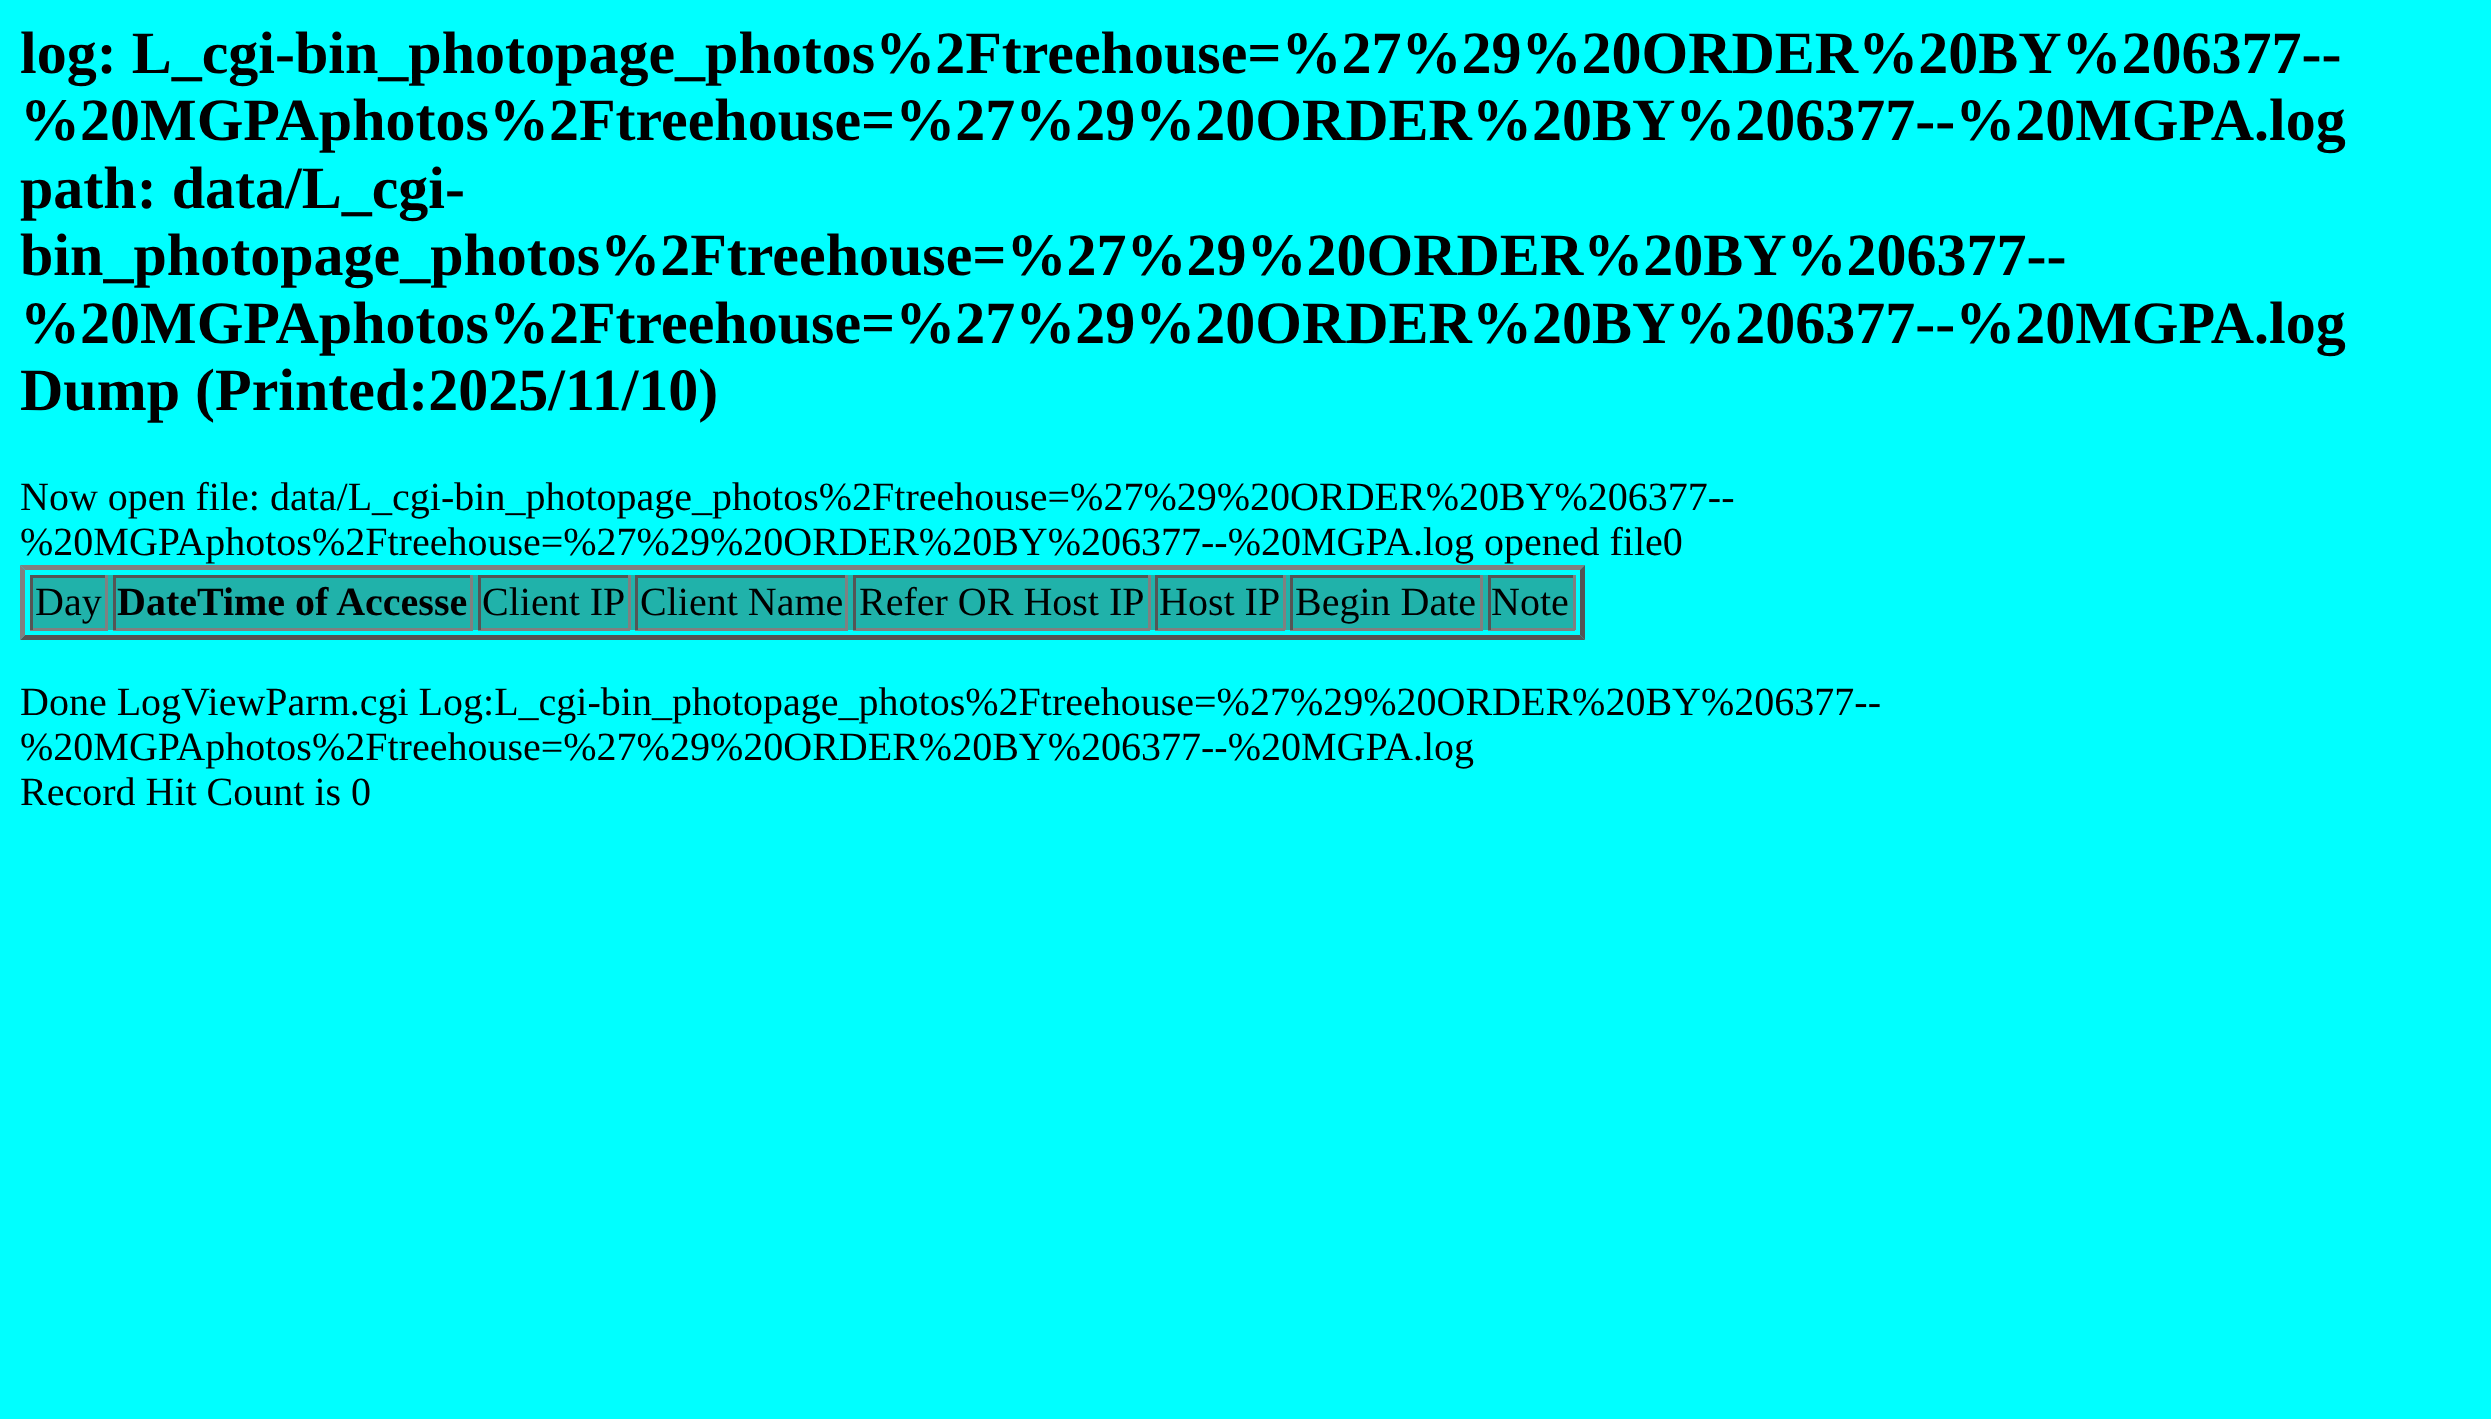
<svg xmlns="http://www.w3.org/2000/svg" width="2491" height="1419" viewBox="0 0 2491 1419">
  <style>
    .t1 { font: bold 60px Liberation Serif; fill: #000; }
    .t2 { font: 40px Liberation Serif; fill: #000; }
    .t3 { font: bold 40px Liberation Serif; fill: #000; }
  </style>
  <rect width="100%" height="100%" fill="#0ff"/>
  <text x="20" y="73" class="t1">log: L_cgi-bin_photopage_photos%2Ftreehouse=%27%29%20ORDER%20BY%206377--</text>
  <text x="20" y="140" class="t1">%20MGPAphotos%2Ftreehouse=%27%29%20ORDER%20BY%206377--%20MGPA.log</text>
  <text x="20" y="208" class="t1">path: data/L_cgi-</text>
  <text x="20" y="275" class="t1">bin_photopage_photos%2Ftreehouse=%27%29%20ORDER%20BY%206377--</text>
  <text x="20" y="343" class="t1">%20MGPAphotos%2Ftreehouse=%27%29%20ORDER%20BY%206377--%20MGPA.log</text>
  <text x="20" y="410" class="t1">Dump (Printed:2025/11/10)</text>
  <text x="20" y="510" class="t2">Now open file: data/L_cgi-bin_photopage_photos%2Ftreehouse=%27%29%20ORDER%20BY%206377--</text>
  <text x="20" y="555" class="t2">%20MGPAphotos%2Ftreehouse=%27%29%20ORDER%20BY%206377--%20MGPA.log opened file0</text>
  <path d="M20 565H1585L1580 570H25Z" fill="#808080"/>
  <path d="M1585 565V640L1580 635V570Z" fill="#555"/>
  <path d="M1585 640H20L25 635H1580Z" fill="#555"/>
  <path d="M20 640V565L25 570V635Z" fill="#808080"/>
  <rect x="33" y="575" width="1540" height="55" fill="#20b2aa"/>
  <rect x="30" y="575" width="78" height="3" fill="#555"/>
  <rect x="105" y="575" width="3" height="55" fill="#808080"/>
  <rect x="30" y="628" width="78" height="3" fill="#808080"/>
  <rect x="30" y="575" width="3" height="55" fill="#555"/>
  <text x="35" y="615" class="t2">Day</text>
  <rect x="113" y="575" width="360" height="3" fill="#555"/>
  <rect x="470" y="575" width="3" height="55" fill="#808080"/>
  <rect x="113" y="628" width="360" height="3" fill="#808080"/>
  <rect x="113" y="575" width="3" height="55" fill="#555"/>
  <text x="117" y="615" class="t3">DateTime of Accesse</text>
  <rect x="478" y="575" width="152" height="3" fill="#555"/>
  <rect x="628" y="575" width="3" height="55" fill="#808080"/>
  <rect x="478" y="628" width="152" height="3" fill="#808080"/>
  <rect x="478" y="575" width="3" height="55" fill="#555"/>
  <text x="482" y="615" class="t2">Client IP</text>
  <rect x="635" y="575" width="213" height="3" fill="#555"/>
  <rect x="845" y="575" width="3" height="55" fill="#808080"/>
  <rect x="635" y="628" width="213" height="3" fill="#808080"/>
  <rect x="635" y="575" width="3" height="55" fill="#555"/>
  <text x="640" y="615" class="t2">Client Name</text>
  <rect x="853" y="575" width="297" height="3" fill="#555"/>
  <rect x="1148" y="575" width="3" height="55" fill="#808080"/>
  <rect x="853" y="628" width="297" height="3" fill="#808080"/>
  <rect x="853" y="575" width="3" height="55" fill="#555"/>
  <text x="859" y="615" class="t2">Refer OR Host IP</text>
  <rect x="1155" y="575" width="130" height="3" fill="#555"/>
  <rect x="1283" y="575" width="3" height="55" fill="#808080"/>
  <rect x="1155" y="628" width="130" height="3" fill="#808080"/>
  <rect x="1155" y="575" width="3" height="55" fill="#555"/>
  <text x="1159" y="615" class="t2">Host IP</text>
  <rect x="1290" y="575" width="193" height="3" fill="#555"/>
  <rect x="1480" y="575" width="3" height="55" fill="#808080"/>
  <rect x="1290" y="628" width="193" height="3" fill="#808080"/>
  <rect x="1290" y="575" width="3" height="55" fill="#555"/>
  <text x="1295" y="615" class="t2">Begin Date</text>
  <rect x="1488" y="575" width="87" height="3" fill="#555"/>
  <rect x="1573" y="575" width="3" height="55" fill="#808080"/>
  <rect x="1488" y="628" width="87" height="3" fill="#808080"/>
  <rect x="1488" y="575" width="3" height="55" fill="#555"/>
  <text x="1491" y="615" class="t2">Note</text>
  <text x="20" y="715" class="t2">Done LogViewParm.cgi Log:L_cgi-bin_photopage_photos%2Ftreehouse=%27%29%20ORDER%20BY%206377--</text>
  <text x="20" y="760" class="t2">%20MGPAphotos%2Ftreehouse=%27%29%20ORDER%20BY%206377--%20MGPA.log</text>
  <text x="20" y="805" class="t2">Record Hit Count is 0</text>
</svg>
